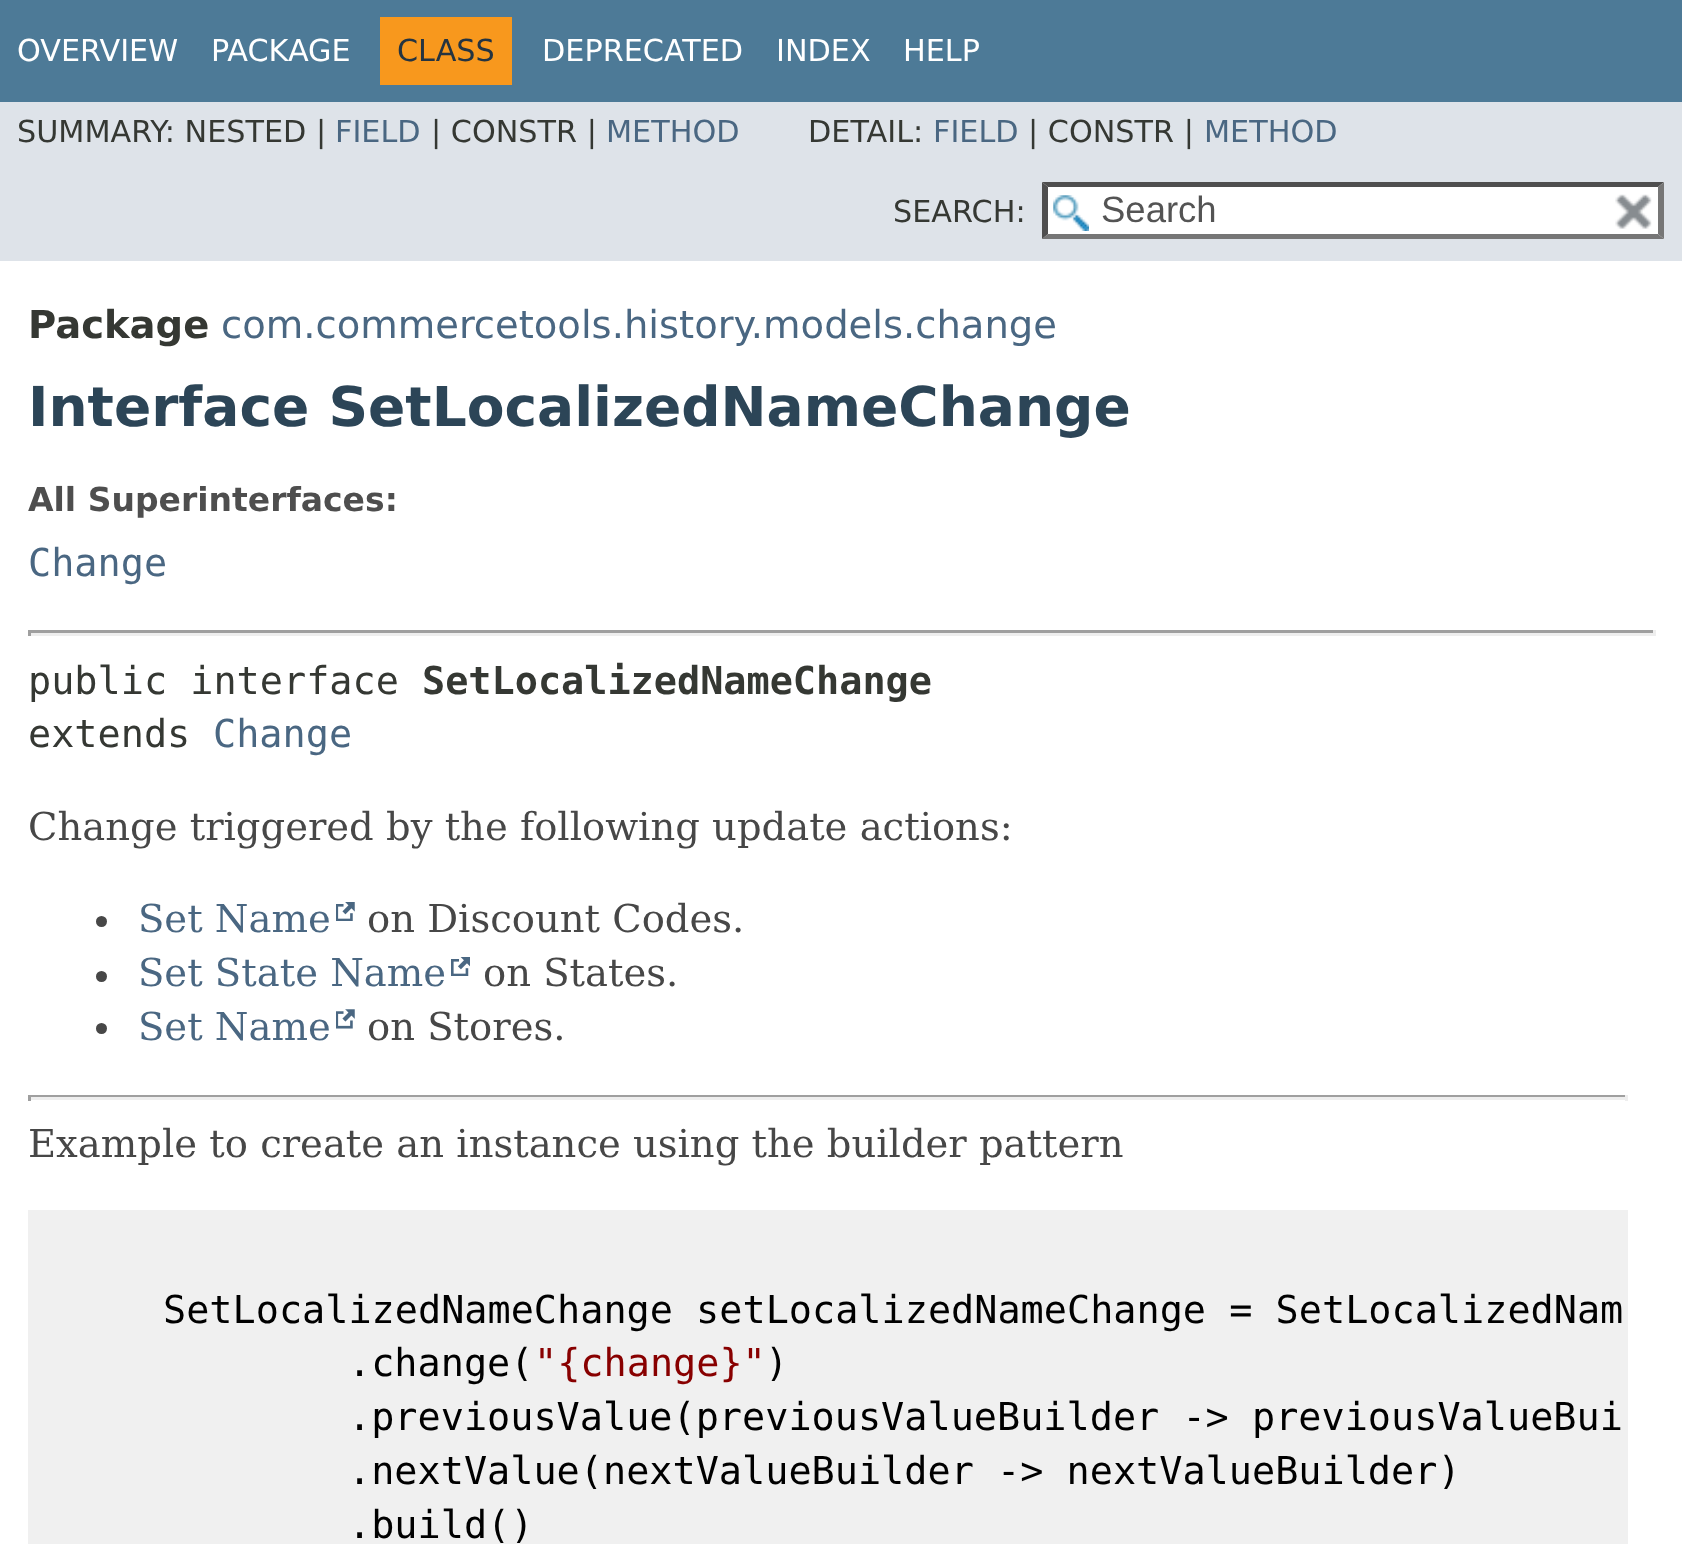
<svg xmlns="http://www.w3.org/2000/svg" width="1682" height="1544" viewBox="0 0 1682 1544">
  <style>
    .t1 { font: 30.25px DejaVu Sans; fill: #fff; }
    .t2 { font: 30.25px DejaVu Sans; fill: #253441; }
    .t3 { font: 30.25px DejaVu Sans; fill: #353833; }
    .t4 { font: 30.25px DejaVu Sans; fill: #4a6782; }
    .t5 { font: 36.5px Liberation Sans; fill: #545454; }
    .t6 { font: bold 38.5px DejaVu Sans; fill: #353833; }
    .t7 { font: 38.5px DejaVu Sans; fill: #4a6782; }
    .t8 { font: bold 55px DejaVu Sans; fill: #2c4557; }
    .t9 { font: bold 33px DejaVu Sans; fill: #4e4e4e; }
    .t10 { font: 38.5px DejaVu Sans Mono; fill: #4a6782; }
    .t11 { font: 38.5px DejaVu Sans Mono; fill: #353833; }
    .t12 { font: bold 38.5px DejaVu Sans Mono; fill: #353833; }
    .t13 { font: 38.5px DejaVu Serif; fill: #474747; }
    .t14 { font: 38.5px DejaVu Serif; fill: #4a6782; }
    .t15 { font: 38.5px DejaVu Sans Mono; fill: #000; }
    .t16 { font: 38.5px DejaVu Sans Mono; fill: #800; }
  </style>
  <rect width="100%" height="100%" fill="#fff"/>
  <rect x="0" y="0" width="1682" height="102" fill="#4d7a97"/>
  <text x="17" y="61" class="t1">OVERVIEW</text>
  <text x="211" y="61" class="t1">PACKAGE</text>
  <rect x="380" y="17" width="132" height="68" fill="#f8981d"/>
  <text x="397" y="61" class="t2">CLASS</text>
  <text x="542" y="61" class="t1">DEPRECATED</text>
  <text x="776" y="61" class="t1">INDEX</text>
  <text x="903" y="61" class="t1">HELP</text>
  <rect x="0" y="102" width="1682" height="159" fill="#dee3e9"/>
  <text x="17" y="142" class="t3">SUMMARY: NESTED |</text>
  <text x="335" y="142" class="t4">FIELD</text>
  <text x="431" y="142" class="t3">| CONSTR |</text>
  <text x="606" y="142" class="t4">METHOD</text>
  <text x="808" y="142" class="t3">DETAIL:</text>
  <text x="933" y="142" class="t4">FIELD</text>
  <text x="1028" y="142" class="t3">| CONSTR |</text>
  <text x="1204" y="142" class="t4">METHOD</text>
  <text x="893" y="222" class="t3">SEARCH:</text>
  <rect x="1042" y="182" width="622" height="57" fill="#fff"/>
  <image x="1053" y="195" width="36" height="36" href="images/1.png"/>
  <path d="M1042 182H1664L1658 187H1048Z" fill="#4f4f4f"/>
  <path d="M1664 182V239L1658 234V187Z" fill="#767676"/>
  <path d="M1664 239H1042L1048 234H1658Z" fill="#767676"/>
  <path d="M1042 239V182L1048 187V234Z" fill="#4f4f4f"/>
  <text x="1101" y="222" class="t5">Search</text>
  <image x="1615" y="194" width="37" height="35" href="images/2.png"/>
  <text x="28" y="338" class="t6">Package</text>
  <text x="221" y="338" class="t7">com.commercetools.history.models.change</text>
  <text x="28" y="426" class="t8">Interface SetLocalizedNameChange</text>
  <text x="28" y="511" class="t9">All Superinterfaces:</text>
  <text x="28" y="576" class="t10">Change</text>
  <rect x="28" y="630" width="1628" height="3" fill="#9f9f9f"/>
  <rect x="1653" y="630" width="3" height="6" fill="#eee"/>
  <rect x="28" y="633" width="1628" height="3" fill="#eee"/>
  <rect x="28" y="630" width="3" height="6" fill="#9f9f9f"/>
  <text x="28" y="694" class="t11">public interface</text>
  <text x="422" y="694" class="t12">SetLocalizedNameChange</text>
  <text x="28" y="747" class="t11">extends</text>
  <text x="213" y="747" class="t10">Change</text>
  <text x="28" y="840" class="t13">Change triggered by the following update actions:</text>
  <circle cx="101.5" cy="921.5" r="5.5" fill="#474747"/>
  <text x="138" y="932" class="t14">Set Name</text>
  <image x="336" y="902" width="19" height="19" href="images/3.png"/>
  <text x="367" y="932" class="t13">on Discount Codes.</text>
  <circle cx="101.5" cy="976.5" r="5.5" fill="#474747"/>
  <text x="138" y="986" class="t14">Set State Name</text>
  <image x="451" y="957" width="19" height="19" href="images/4.png"/>
  <text x="483" y="986" class="t13">on States.</text>
  <circle cx="101.5" cy="1028.5" r="5.5" fill="#474747"/>
  <text x="138" y="1040" class="t14">Set Name</text>
  <image x="336" y="1009" width="19" height="20" href="images/5.png"/>
  <text x="367" y="1040" class="t13">on Stores.</text>
  <rect x="28" y="1095" width="1600" height="2" fill="#9f9f9f"/>
  <rect x="1625" y="1095" width="3" height="6" fill="#eee"/>
  <rect x="28" y="1097" width="1600" height="3" fill="#eee"/>
  <rect x="28" y="1095" width="3" height="6" fill="#9f9f9f"/>
  <text x="28" y="1157" class="t13">Example to create an instance using the builder pattern</text>
  <rect x="28" y="1210" width="1600" height="334" fill="#f0f0f0"/>
  <text x="163" y="1323" class="t15">SetLocalizedNameChange setLocalizedNameChange = SetLocalizedNam</text>
  <text x="348" y="1376" class="t15">.change(</text>
  <text x="534" y="1376" class="t16">"{change}"</text>
  <text x="765" y="1376" class="t15">)</text>
  <text x="348" y="1430" class="t15">.previousValue(previousValueBuilder -&gt; previousValueBui</text>
  <text x="348" y="1484" class="t15">.nextValue(nextValueBuilder -&gt; nextValueBuilder)</text>
  <text x="348" y="1538" class="t15">.build()</text>
</svg>
